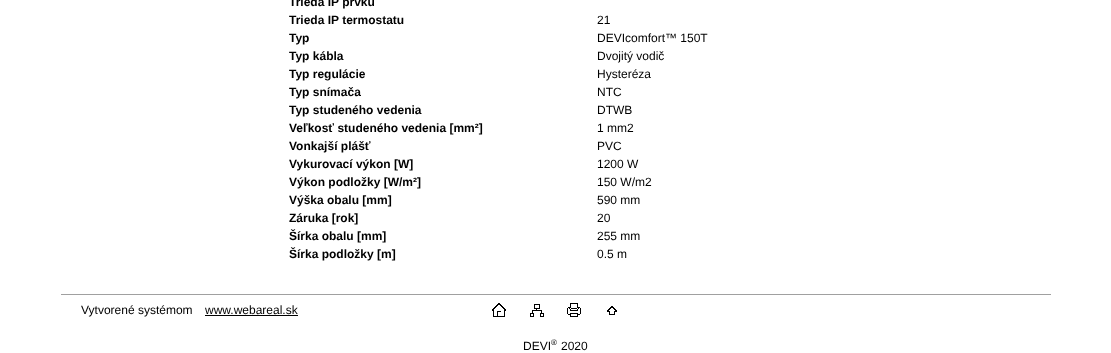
<svg xmlns="http://www.w3.org/2000/svg" width="1111" height="353" viewBox="0 0 1111 353">
  <style>
    .t1 { font: bold 12px Liberation Sans; fill: #000; }
    .t2 { font: 12px Liberation Sans; fill: #000; }
    .t3 { font: 8px Liberation Sans; fill: #000; }
  </style>
  <rect width="100%" height="100%" fill="#fff"/>
  <text x="289" y="6" class="t1">Trieda IP prvku</text>
  <text x="289" y="24" class="t1">Trieda IP termostatu</text>
  <text x="597" y="24" class="t2">21</text>
  <text x="289" y="42" class="t1">Typ</text>
  <text x="597" y="42" class="t2">DEVIcomfort™ 150T</text>
  <text x="289" y="60" class="t1">Typ kábla</text>
  <text x="597" y="60" class="t2">Dvojitý vodič</text>
  <text x="289" y="78" class="t1">Typ regulácie</text>
  <text x="597" y="78" class="t2">Hysteréza</text>
  <text x="289" y="96" class="t1">Typ snímača</text>
  <text x="597" y="96" class="t2">NTC</text>
  <text x="289" y="114" class="t1">Typ studeného vedenia</text>
  <text x="597" y="114" class="t2">DTWB</text>
  <text x="289" y="132" class="t1">Veľkosť studeného vedenia [mm²]</text>
  <text x="597" y="132" class="t2">1 mm2</text>
  <text x="289" y="150" class="t1">Vonkajší plášť</text>
  <text x="597" y="150" class="t2">PVC</text>
  <text x="289" y="168" class="t1">Vykurovací výkon [W]</text>
  <text x="597" y="168" class="t2">1200 W</text>
  <text x="289" y="186" class="t1">Výkon podložky [W/m²]</text>
  <text x="597" y="186" class="t2">150 W/m2</text>
  <text x="289" y="204" class="t1">Výška obalu [mm]</text>
  <text x="597" y="204" class="t2">590 mm</text>
  <text x="289" y="222" class="t1">Záruka [rok]</text>
  <text x="597" y="222" class="t2">20</text>
  <text x="289" y="240" class="t1">Šírka obalu [mm]</text>
  <text x="597" y="240" class="t2">255 mm</text>
  <text x="289" y="258" class="t1">Šírka podložky [m]</text>
  <text x="597" y="258" class="t2">0.5 m</text>
  <rect x="61" y="294" width="990" height="1" fill="#a0a0a0"/>
  <text x="81" y="314" class="t2">Vytvorené systémom</text>
  <text x="205" y="314" class="t2">www.webareal.sk</text>
  <rect x="205" y="315" width="93" height="1" fill="#000"/>
  <image x="492" y="303" width="14" height="14" href="images/1.png"/>
  <image x="530" y="304" width="14" height="13" href="images/2.png"/>
  <image x="567" y="303" width="14" height="14" href="images/3.png"/>
  <image x="607" y="306" width="10" height="9" href="images/4.png"/>
  <text x="523" y="350" class="t2">DEVI</text>
  <text x="551" y="345" class="t3">®</text>
  <text x="561" y="350" class="t2">2020</text>
</svg>
